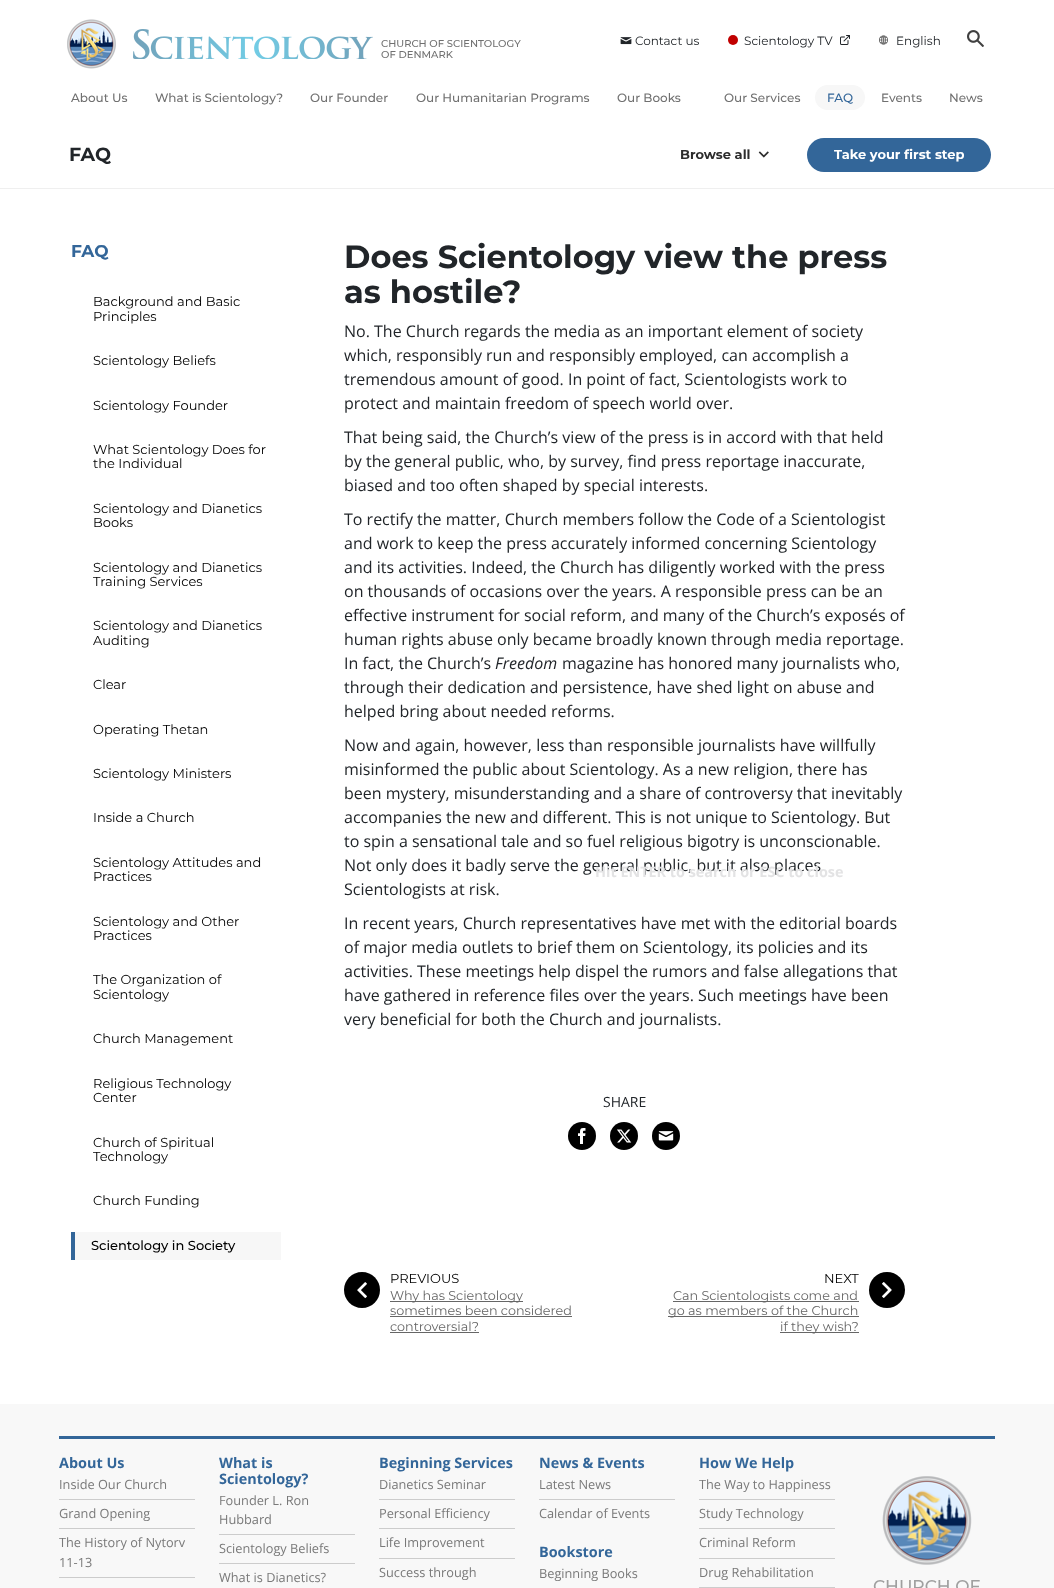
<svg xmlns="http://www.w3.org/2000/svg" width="1054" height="1588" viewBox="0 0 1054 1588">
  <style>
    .t1 { font: 12px Montserrat; fill: #212529; }
    .t2 { font: 500 10px Montserrat; fill: #707070; }
    .t3 { font: 500 12px Montserrat; fill: #707070; }
    .t4 { font: 500 12px Montserrat; fill: #369; }
    .t5 { font: bold 19px Montserrat; fill: #212529; }
    .t6 { font: bold 13px Montserrat; fill: #2c2c2c; }
    .t7 { font: bold 13px Montserrat; fill: #fff; }
    .t8 { font: bold 17px Montserrat; fill: #369; }
    .t9 { font: 13px Montserrat; fill: #000; }
    .t10 { font: 500 13px Montserrat; fill: #000; }
    .t11 { font: bold 32px Montserrat; fill: #212529; }
    .t12 { font: 16px Open Sans; fill: #212529; }
    .t13 { font: italic 16px Open Sans; fill: #212529; }
    .t14 { font: 14px Open Sans; fill: #212529; }
    .t15 { font: 12.75px Montserrat; fill: #666; }
    .t16 { font: bold 14.4px Open Sans; fill: #369; }
    .t17 { font: 12.75px Open Sans; fill: #797979; }
    .t18 { font: 500 17px Montserrat; fill: #9f9f9f; }
    .t19 { font: bold 14.4px Open Sans; fill: #e3e3e4; }
  </style>
  <rect width="100%" height="100%" fill="#f8f8f8"/>
  <rect x="0" y="0" width="1054" height="188" fill="#fff"/>
  <image x="620" y="37" width="12" height="8" href="images/1.png"/>
  <text x="635" y="45" class="t1">Contact us</text>
  <circle cx="733" cy="40" r="5" fill="#c10000"/>
  <text x="744" y="45" class="t1">Scientology TV</text>
  <image x="840" y="35" width="10" height="10" href="images/2.png"/>
  <image x="879" y="35" width="9" height="10" href="images/3.png"/>
  <text x="896" y="45" class="t1">English</text>
  <image x="967" y="30" width="17" height="17" href="images/4.png"/>
  <image x="67" y="19" width="49" height="50" href="images/5.png"/>
  <image x="133" y="29" width="240" height="30" href="images/6.png"/>
  <text x="381" y="47" class="t2">CHURCH OF SCIENTOLOGY</text>
  <text x="381" y="58" class="t2">OF DENMARK</text>
  <text x="71" y="102" class="t3">About Us</text>
  <text x="155" y="102" class="t3">What is Scientology?</text>
  <text x="310" y="102" class="t3">Our Founder</text>
  <text x="416" y="102" class="t3">Our Humanitarian Programs</text>
  <text x="617" y="102" class="t3">Our Books</text>
  <text x="724" y="102" class="t3">Our Services</text>
  <rect x="815" y="85" width="50" height="25" rx="12.5" fill="#f7f7f7"/>
  <text x="827" y="102" class="t4">FAQ</text>
  <text x="881" y="102" class="t3">Events</text>
  <text x="949" y="102" class="t3">News</text>
  <rect x="0" y="188" width="1054" height="1" fill="#efefef"/>
  <text x="69" y="161" class="t5">FAQ</text>
  <text x="680" y="159" class="t6">Browse all</text>
  <image x="758" y="151" width="11" height="7" href="images/7.png"/>
  <rect x="807" y="138" width="184" height="34" rx="17" fill="#369"/>
  <text x="834" y="159" class="t7">Take your first step</text>
  <rect x="0" y="189" width="1054" height="1215" fill="#fff"/>
  <text x="71" y="257" class="t8">FAQ</text>
  <text x="93" y="306" class="t9">Background and Basic</text>
  <text x="93" y="321" class="t9">Principles</text>
  <text x="93" y="365" class="t9">Scientology Beliefs</text>
  <text x="93" y="410" class="t9">Scientology Founder</text>
  <text x="93" y="454" class="t9">What Scientology Does for</text>
  <text x="93" y="468" class="t9">the Individual</text>
  <text x="93" y="513" class="t9">Scientology and Dianetics</text>
  <text x="93" y="527" class="t9">Books</text>
  <text x="93" y="572" class="t9">Scientology and Dianetics</text>
  <text x="93" y="586" class="t9">Training Services</text>
  <text x="93" y="630" class="t9">Scientology and Dianetics</text>
  <text x="93" y="645" class="t9">Auditing</text>
  <text x="93" y="689" class="t9">Clear</text>
  <text x="93" y="734" class="t9">Operating Thetan</text>
  <text x="93" y="778" class="t9">Scientology Ministers</text>
  <text x="93" y="822" class="t9">Inside a Church</text>
  <text x="93" y="867" class="t9">Scientology Attitudes and</text>
  <text x="93" y="881" class="t9">Practices</text>
  <text x="93" y="926" class="t9">Scientology and Other</text>
  <text x="93" y="940" class="t9">Practices</text>
  <text x="93" y="984" class="t9">The Organization of</text>
  <text x="93" y="999" class="t9">Scientology</text>
  <text x="93" y="1043" class="t9">Church Management</text>
  <text x="93" y="1088" class="t9">Religious Technology</text>
  <text x="93" y="1102" class="t9">Center</text>
  <text x="93" y="1147" class="t9">Church of Spiritual</text>
  <text x="93" y="1161" class="t9">Technology</text>
  <text x="93" y="1205" class="t9">Church Funding</text>
  <rect x="75" y="1232" width="206" height="28" fill="#f7f7f7"/>
  <rect x="71" y="1232" width="4" height="28" fill="#369"/>
  <text x="91" y="1250" class="t10">Scientology in Society</text>
  <text x="344" y="268" class="t11">Does Scientology view the press</text>
  <text x="344" y="303" class="t11">as hostile?</text>
  <text x="344" y="337" class="t12">No. The Church regards the media as an important element of society</text>
  <text x="344" y="361" class="t12">which, responsibly run and responsibly employed, can accomplish a</text>
  <text x="344" y="385" class="t12">tremendous amount of good. In point of fact, Scientologists work to</text>
  <text x="344" y="409" class="t12">protect and maintain freedom of speech world over.</text>
  <text x="344" y="443" class="t12">That being said, the Church’s view of the press is in accord with that held</text>
  <text x="344" y="467" class="t12">by the general public, who, by survey, find press reportage inaccurate,</text>
  <text x="344" y="491" class="t12">biased and too often shaped by special interests.</text>
  <text x="344" y="525" class="t12">To rectify the matter, Church members follow the Code of a Scientologist</text>
  <text x="344" y="549" class="t12">and work to keep the press accurately informed concerning Scientology</text>
  <text x="344" y="573" class="t12">and its activities. Indeed, the Church has diligently worked with the press</text>
  <text x="344" y="597" class="t12">on thousands of occasions over the years. A responsible press can be an</text>
  <text x="344" y="621" class="t12">effective instrument for social reform, and many of the Church’s exposés of</text>
  <text x="344" y="645" class="t12">human rights abuse only became broadly known through media reportage.</text>
  <text x="344" y="669" class="t12">In fact, the Church’s</text>
  <text x="495" y="669" class="t13">Freedom</text>
  <text x="562" y="669" class="t12">magazine has honored many journalists who,</text>
  <text x="344" y="693" class="t12">through their dedication and persistence, have shed light on abuse and</text>
  <text x="344" y="717" class="t12">helped bring about needed reforms.</text>
  <text x="344" y="751" class="t12">Now and again, however, less than responsible journalists have willfully</text>
  <text x="344" y="775" class="t12">misinformed the public about Scientology. As a new religion, there has</text>
  <text x="344" y="799" class="t12">been mystery, misunderstanding and a share of controversy that inevitably</text>
  <text x="344" y="823" class="t12">accompanies the new and different. This is not unique to Scientology. But</text>
  <text x="344" y="847" class="t12">to spin a sensational tale and so fuel religious bigotry is unconscionable.</text>
  <text x="344" y="871" class="t12">Not only does it badly serve the general public, but it also places</text>
  <text x="344" y="895" class="t12">Scientologists at risk.</text>
  <text x="344" y="929" class="t12">In recent years, Church representatives have met with the editorial boards</text>
  <text x="344" y="953" class="t12">of major media outlets to brief them on Scientology, its policies and its</text>
  <text x="344" y="977" class="t12">activities. These meetings help dispel the rumors and false allegations that</text>
  <text x="344" y="1001" class="t12">have gathered in reference files over the years. Such meetings have been</text>
  <text x="344" y="1025" class="t12">very beneficial for both the Church and journalists.</text>
  <text x="603" y="1107" class="t14">SHARE</text>
  <circle cx="582" cy="1136" r="14" fill="#000"/>
  <image x="578" y="1128" width="8" height="16" href="images/8.png"/>
  <circle cx="624" cy="1136" r="14" fill="#000"/>
  <image x="617" y="1129" width="15" height="14" href="images/9.png"/>
  <circle cx="666" cy="1136" r="14" fill="#000"/>
  <image x="658" y="1131" width="16" height="10" href="images/10.png"/>
  <path d="M362 1308C352 1308 344 1300 344 1290C344 1280 352 1272 362 1272C372 1272 380 1280 380 1290C380 1300 372 1308 362 1308Z" fill="#000"/>
  <image x="357" y="1282" width="10" height="17" href="images/11.png"/>
  <text x="390" y="1283" class="t9">PREVIOUS</text>
  <rect x="390" y="1301" width="133" height="1" fill="#666"/>
  <text x="390" y="1300" class="t15">Why has Scientology</text>
  <text x="390" y="1315" class="t15">sometimes been considered</text>
  <rect x="390" y="1316" width="182" height="1" fill="#666"/>
  <text x="390" y="1331" class="t15">controversial?</text>
  <rect x="390" y="1332" width="89" height="1" fill="#666"/>
  <text x="824" y="1283" class="t9">NEXT</text>
  <rect x="673" y="1301" width="186" height="1" fill="#666"/>
  <text x="673" y="1300" class="t15">Can Scientologists come and</text>
  <rect x="668" y="1316" width="191" height="1" fill="#666"/>
  <text x="668" y="1315" class="t15">go as members of the Church</text>
  <rect x="780" y="1332" width="79" height="1" fill="#666"/>
  <text x="780" y="1331" class="t15">if they wish?</text>
  <circle cx="887" cy="1290" r="18" fill="#000"/>
  <image x="882" y="1282" width="10" height="16" href="images/12.png"/>
  <rect x="59" y="1436" width="936" height="3" fill="#369"/>
  <text x="59" y="1468" class="t16">About Us</text>
  <rect x="59" y="1499" width="136" height="1" fill="#ccc"/>
  <text x="59" y="1489" class="t17">Inside Our Church</text>
  <rect x="59" y="1528" width="136" height="1" fill="#ccc"/>
  <text x="59" y="1518" class="t17">Grand Opening</text>
  <rect x="59" y="1577" width="136" height="1" fill="#ccc"/>
  <text x="59" y="1547" class="t17">The History of Nytorv</text>
  <text x="59" y="1567" class="t17">11-13</text>
  <text x="219" y="1468" class="t16">What is</text>
  <text x="219" y="1484" class="t16">Scientology?</text>
  <rect x="219" y="1534" width="136" height="1" fill="#ccc"/>
  <text x="219" y="1505" class="t17">Founder L. Ron</text>
  <text x="219" y="1524" class="t17">Hubbard</text>
  <rect x="219" y="1563" width="136" height="1" fill="#ccc"/>
  <text x="219" y="1553" class="t17">Scientology Beliefs</text>
  <text x="219" y="1582" class="t17">What is Dianetics?</text>
  <text x="379" y="1468" class="t16">Beginning Services</text>
  <rect x="379" y="1499" width="136" height="1" fill="#ccc"/>
  <text x="379" y="1489" class="t17">Dianetics Seminar</text>
  <rect x="379" y="1528" width="136" height="1" fill="#ccc"/>
  <text x="379" y="1518" class="t17">Personal Efficiency</text>
  <rect x="379" y="1558" width="136" height="1" fill="#ccc"/>
  <text x="379" y="1547" class="t17">Life Improvement</text>
  <text x="379" y="1577" class="t17">Success through</text>
  <text x="539" y="1468" class="t16">News &amp; Events</text>
  <rect x="539" y="1499" width="136" height="1" fill="#ccc"/>
  <text x="539" y="1489" class="t17">Latest News</text>
  <text x="539" y="1518" class="t17">Calendar of Events</text>
  <text x="539" y="1557" class="t16">Bookstore</text>
  <text x="539" y="1578" class="t17">Beginning Books</text>
  <text x="699" y="1468" class="t16">How We Help</text>
  <rect x="699" y="1499" width="136" height="1" fill="#ccc"/>
  <text x="699" y="1489" class="t17">The Way to Happiness</text>
  <rect x="699" y="1528" width="136" height="1" fill="#ccc"/>
  <text x="699" y="1518" class="t17">Study Technology</text>
  <rect x="699" y="1558" width="136" height="1" fill="#ccc"/>
  <text x="699" y="1547" class="t17">Criminal Reform</text>
  <rect x="699" y="1587" width="136" height="1" fill="#ccc"/>
  <text x="699" y="1577" class="t17">Drug Rehabilitation</text>
  <image x="882" y="1476" width="90" height="89" href="images/13.png"/>
  <text x="873" y="1592" class="t18">CHURCH OF</text>
  <text x="595" y="877" class="t19">Hit ENTER to search or ESC to close</text>
</svg>
